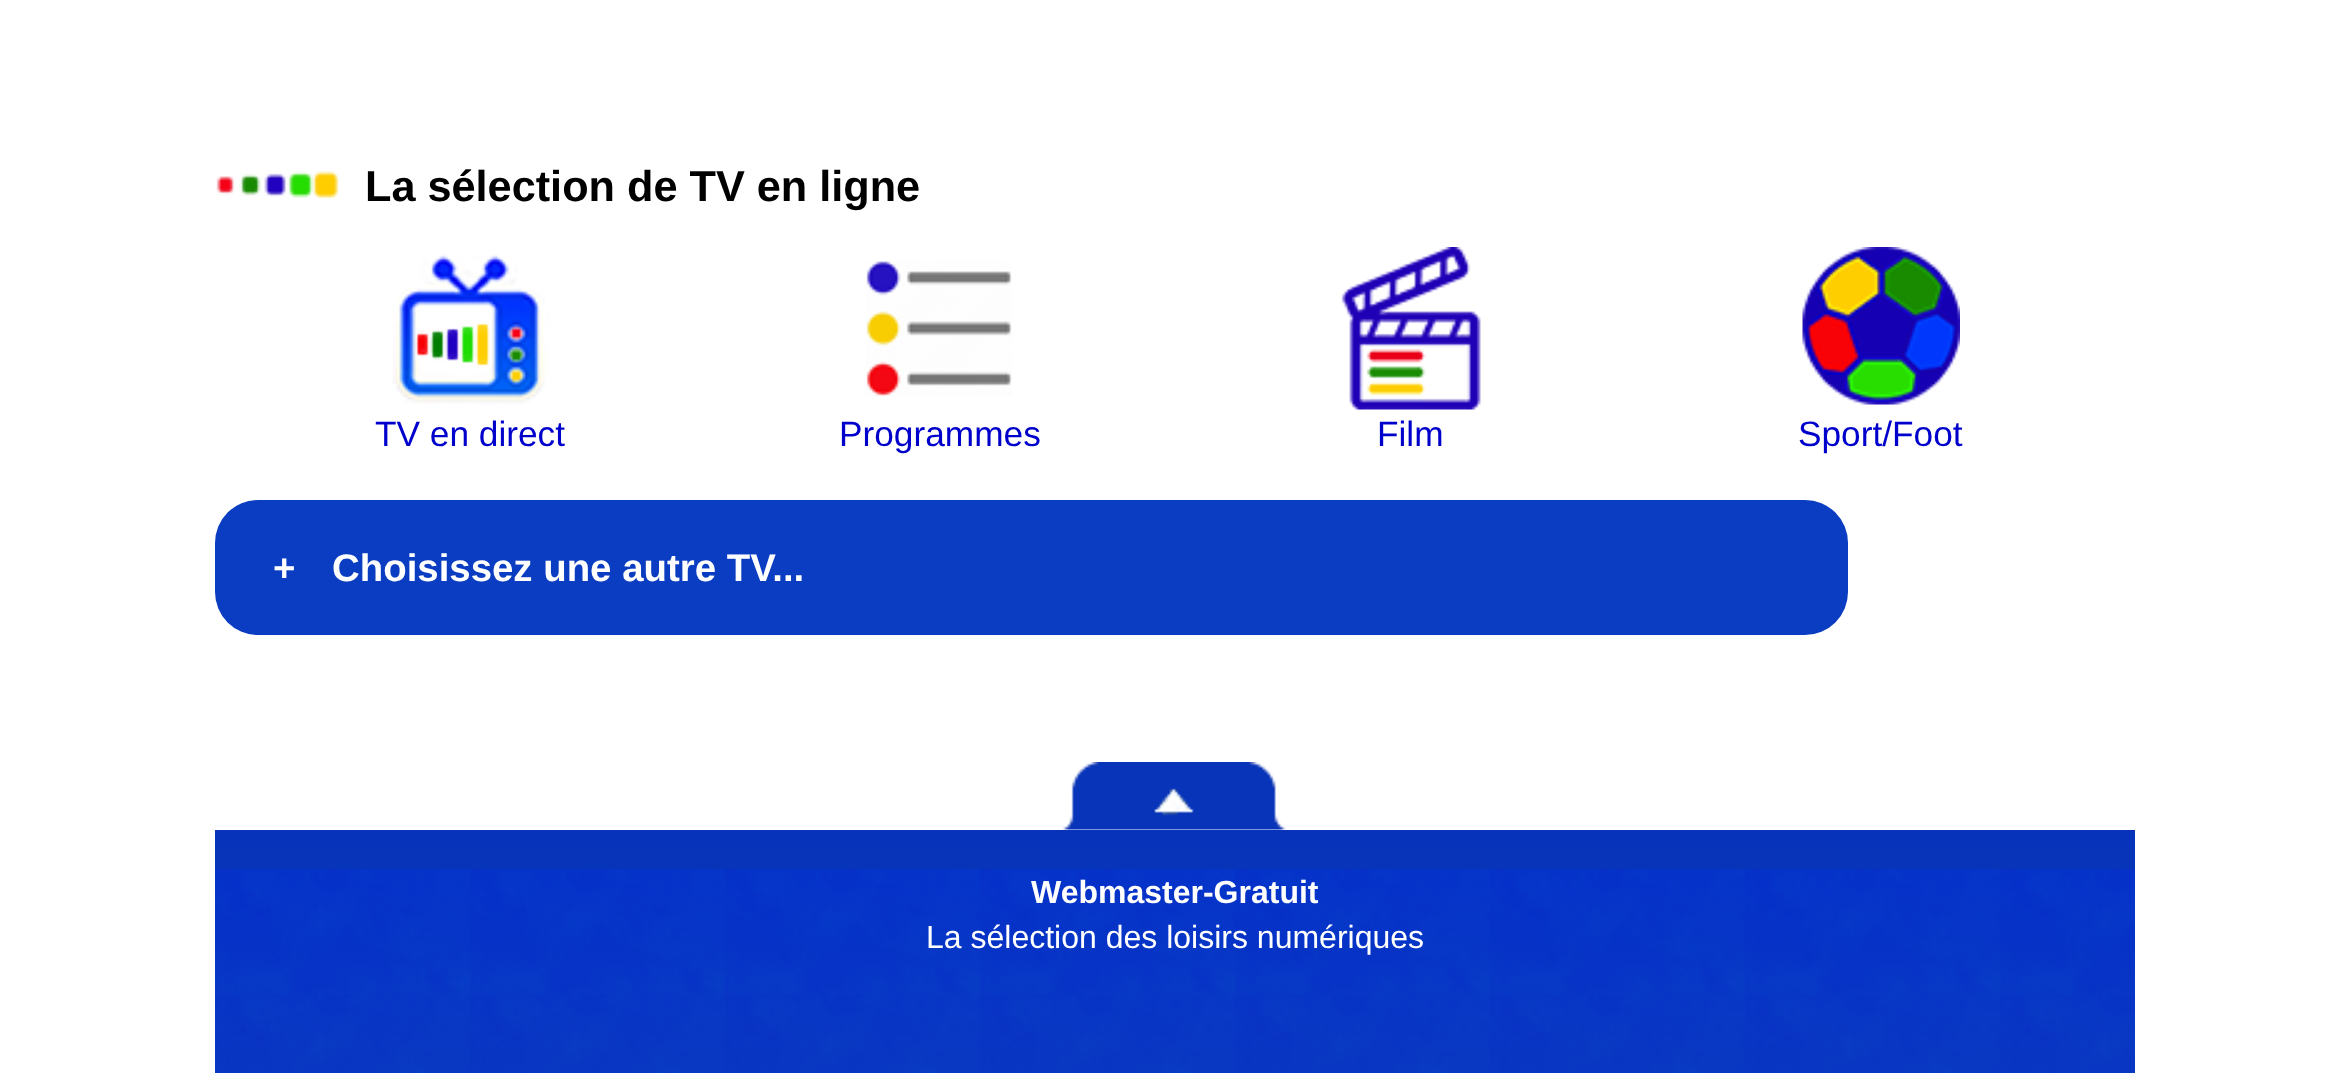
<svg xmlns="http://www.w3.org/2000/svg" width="2348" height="1073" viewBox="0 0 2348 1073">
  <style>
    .t1 { font: bold 43.25px Liberation Sans; fill: #000; }
    .t2 { font: 35.25px Liberation Sans; fill: #00c; }
    .t3 { font: bold 38.4px Liberation Sans; fill: #fff; }
    .t4 { font: bold 32px Liberation Sans; fill: #fff; }
    .t5 { font: 32px Liberation Sans; fill: #fff; }
  </style>
  <defs>
    <linearGradient id="g1" gradientUnits="userSpaceOnUse" x1="1175" y1="830" x2="1175" y2="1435"><stop offset="0" stop-color="#0633ba"/><stop offset="1" stop-color="#1746a2"/></linearGradient>
  </defs>
  <rect width="100%" height="100%" fill="#fff"/>
  <image x="216" y="171" width="123" height="29" href="images/1.png"/>
  <text x="365" y="201" class="t1">La sélection de TV en ligne</text>
  <image x="392" y="254" width="157" height="150" href="images/2.png"/>
  <image x="866" y="261" width="146" height="136" href="images/3.png"/>
  <image x="1341" y="247" width="140" height="163" href="images/4.png"/>
  <image x="1802" y="247" width="158" height="158" href="images/5.png"/>
  <text x="375" y="446" class="t2">TV en direct</text>
  <text x="839" y="446" class="t2">Programmes</text>
  <text x="1377" y="446" class="t2">Film</text>
  <text x="1798" y="446" class="t2">Sport/Foot</text>
  <rect x="215" y="500" width="1633" height="135" rx="43" fill="#0a3dc1"/>
  <text x="273" y="581" class="t3">+</text>
  <text x="332" y="581" class="t3">Choisissez une autre TV...</text>
  <image x="1062" y="762" width="224" height="68" href="images/6.png"/>
  <rect x="215" y="830" width="1920" height="243" fill="url(#g1)"/>
  <image x="215" y="869" width="1920" height="204" href="images/7.png"/>
  <text x="1031" y="903" class="t4">Webmaster-Gratuit</text>
  <text x="926" y="948" class="t5">La sélection des loisirs numériques</text>
</svg>
